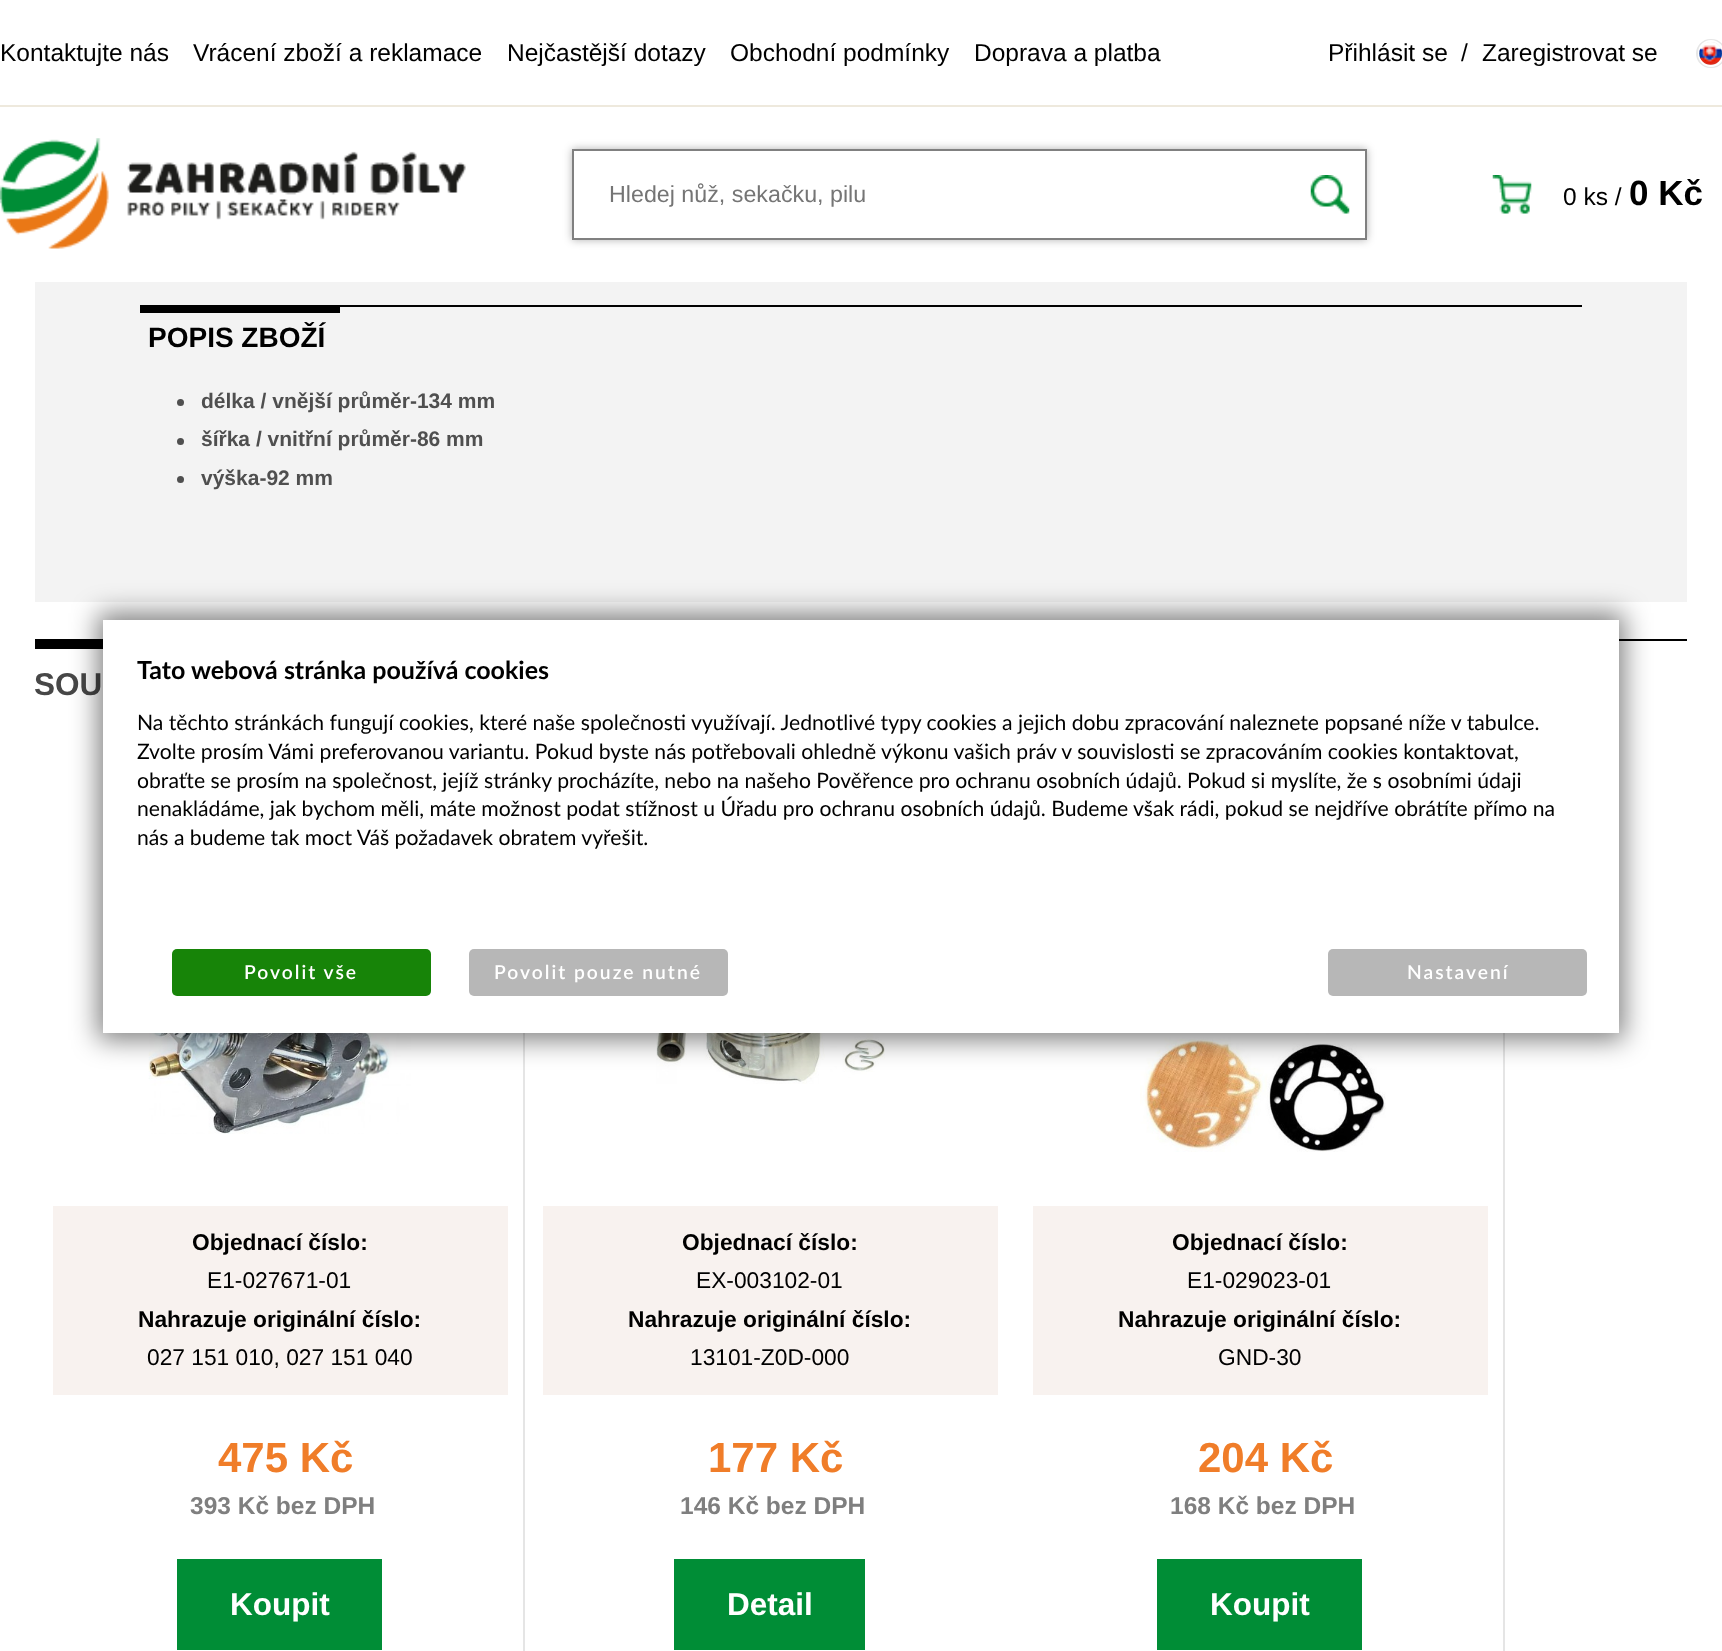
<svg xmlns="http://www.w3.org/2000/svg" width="1722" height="1651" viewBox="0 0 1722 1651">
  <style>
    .t1 { font: 24.5px Liberation Sans; fill: #000; }
    .t2 { font: 23.25px Liberation Sans; fill: #757575; }
    .t3 { font: bold 35px Liberation Sans; fill: #000; }
    .t4 { font: bold 28px Liberation Sans; fill: #000; }
    .t5 { font: bold 21px Liberation Sans; fill: #4f4f4f; }
    .t6 { font: bold 31.5px Liberation Sans; fill: #474747; }
    .t7 { font: bold 22.75px Liberation Sans; fill: #000; }
    .t8 { font: 22.75px Liberation Sans; fill: #000; }
    .t9 { font: bold 42px Liberation Sans; fill: #f07d29; }
    .t10 { font: bold 24.5px Liberation Sans; fill: #7f7f7f; }
    .t11 { font: bold 31.5px Liberation Sans; fill: #fff; }
    .t12 { font: bold 25px Lato; fill: #000; }
    .t13 { font: 21.18px Lato; fill: #000; }
    .t14 { font: 600 19.25px Lato; letter-spacing: 2px; fill: #fff; }
  </style>
  <defs>
    <clipPath id="clip1"><path d="M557 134H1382V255H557ZM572 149H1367V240H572Z" clip-rule="evenodd"/></clipPath>
  </defs>
  <rect width="100%" height="100%" fill="#fff"/>
  <rect x="0" y="105" width="1722" height="2" fill="#eee9dd"/>
  <text x="0" y="61" class="t1">Kontaktujte nás</text>
  <text x="193" y="61" class="t1">Vrácení zboží a reklamace</text>
  <text x="507" y="61" class="t1">Nejčastější dotazy</text>
  <text x="730" y="61" class="t1">Obchodní podmínky</text>
  <text x="974" y="61" class="t1">Doprava a platba</text>
  <text x="1328" y="61" class="t1">Přihlásit se</text>
  <text x="1461" y="61" class="t1">/</text>
  <text x="1482" y="61" class="t1">Zaregistrovat se</text>
  <rect x="1698" y="41" width="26" height="25" rx="12.5" fill="none" stroke="#e6e6e6" stroke-width="4"/>
  <rect x="1699" y="41" width="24" height="25" rx="12" fill="none" stroke="#fff" stroke-width="2"/>
  <image x="1699" y="42" width="23" height="23" href="images/1.png"/>
  <image x="0" y="138" width="466" height="111" href="images/2.png"/>
  <g clip-path="url(#clip1)">
    <rect x="572" y="149" width="795" height="91" fill="#0000004d" filter="blur(4.5px)"/>
  </g>
  <rect x="573" y="150" width="793" height="89" fill="none" stroke="#808080" stroke-width="2"/>
  <text x="609" y="202" class="t2">Hledej nůž, sekačku, pilu</text>
  <image x="1310" y="175" width="40" height="39" href="images/3.png"/>
  <image x="1492" y="175" width="40" height="39" href="images/4.png"/>
  <text x="1563" y="205" class="t1">0 ks /</text>
  <text x="1629" y="205" class="t3">0 Kč</text>
  <rect x="35" y="282" width="1652" height="320" fill="#f3f3f3"/>
  <rect x="340" y="305" width="1242" height="2" fill="#000"/>
  <rect x="140" y="305" width="200" height="8" fill="#000"/>
  <text x="148" y="347" class="t4">POPIS ZBOŽÍ</text>
  <circle cx="180.5" cy="402.5" r="3.5" fill="#4f4f4f"/>
  <text x="201" y="408" class="t5">délka / vnější průměr-134 mm</text>
  <circle cx="180.5" cy="441.5" r="3.5" fill="#4f4f4f"/>
  <text x="201" y="446" class="t5">šířka / vnitřní průměr-86 mm</text>
  <circle cx="180.5" cy="479.5" r="3.5" fill="#4f4f4f"/>
  <text x="201" y="485" class="t5">výška-92 mm</text>
  <rect x="35" y="639" width="1652" height="2" fill="#000"/>
  <rect x="35" y="641" width="68" height="8" fill="#000"/>
  <text x="34" y="695" class="t6">SOU</text>
  <image x="148" y="1033" width="264" height="101" href="images/5.png"/>
  <rect x="523" y="1033" width="2" height="618" fill="#e5e5e5"/>
  <rect x="53" y="1206" width="455" height="189" fill="#f8f2ef"/>
  <text x="192" y="1250" class="t7">Objednací číslo:</text>
  <text x="207" y="1288" class="t8">E1-027671-01</text>
  <text x="138" y="1327" class="t7">Nahrazuje originální číslo:</text>
  <text x="147" y="1365" class="t8">027 151 010, 027 151 040</text>
  <text x="218" y="1472" class="t9">475 Kč</text>
  <text x="190" y="1514" class="t10">393 Kč bez DPH</text>
  <rect x="177" y="1559" width="205" height="91" fill="#008d36"/>
  <text x="230" y="1615" class="t11">Koupit</text>
  <image x="656" y="1033" width="229" height="51" href="images/6.png"/>
  <rect x="543" y="1206" width="455" height="189" fill="#f8f2ef"/>
  <text x="682" y="1250" class="t7">Objednací číslo:</text>
  <text x="696" y="1288" class="t8">EX-003102-01</text>
  <text x="628" y="1327" class="t7">Nahrazuje originální číslo:</text>
  <text x="690" y="1365" class="t8">13101-Z0D-000</text>
  <text x="708" y="1472" class="t9">177 Kč</text>
  <text x="680" y="1514" class="t10">146 Kč bez DPH</text>
  <rect x="674" y="1559" width="191" height="91" fill="#008d36"/>
  <text x="727" y="1615" class="t11">Detail</text>
  <image x="1140" y="1033" width="246" height="119" href="images/7.png"/>
  <rect x="1503" y="1033" width="2" height="618" fill="#e5e5e5"/>
  <rect x="1033" y="1206" width="455" height="189" fill="#f8f2ef"/>
  <text x="1172" y="1250" class="t7">Objednací číslo:</text>
  <text x="1187" y="1288" class="t8">E1-029023-01</text>
  <text x="1118" y="1327" class="t7">Nahrazuje originální číslo:</text>
  <text x="1218" y="1365" class="t8">GND-30</text>
  <text x="1198" y="1472" class="t9">204 Kč</text>
  <text x="1170" y="1514" class="t10">168 Kč bez DPH</text>
  <rect x="1157" y="1559" width="205" height="91" fill="#008d36"/>
  <text x="1210" y="1615" class="t11">Koupit</text>
  <rect x="98" y="613" width="1526" height="427" fill="#00000080" filter="blur(13.5px)"/>
  <rect x="103" y="620" width="1516" height="413" fill="#fff"/>
  <text x="137" y="679" class="t12">Tato webová stránka používá cookies</text>
  <text x="137" y="730" class="t13">Na těchto stránkách fungují cookies, které naše společnosti využívají. Jednotlivé typy cookies a jejich dobu zpracování naleznete popsané níže v tabulce.</text>
  <text x="137" y="759" class="t13">Zvolte prosím Vámi preferovanou variantu. Pokud byste nás potřebovali ohledně výkonu vašich práv v souvislosti se zpracováním cookies kontaktovat,</text>
  <text x="137" y="788" class="t13">obraťte se prosím na společnost, jejíž stránky procházíte, nebo na našeho Pověřence pro ochranu osobních údajů. Pokud si myslíte, že s osobními údaji</text>
  <text x="137" y="816" class="t13">nenakládáme, jak bychom měli, máte možnost podat stížnost u Úřadu pro ochranu osobních údajů. Budeme však rádi, pokud se nejdříve obrátíte přímo na</text>
  <text x="137" y="845" class="t13">nás a budeme tak moct Váš požadavek obratem vyřešit.</text>
  <rect x="172" y="949" width="259" height="47" rx="5" fill="#178408"/>
  <text x="244" y="979" class="t14">Povolit vše</text>
  <rect x="469" y="949" width="259" height="47" rx="5" fill="#b7b7b7"/>
  <text x="494" y="979" class="t14">Povolit pouze nutné</text>
  <rect x="1328" y="949" width="259" height="47" rx="5" fill="#b7b7b7"/>
  <text x="1407" y="979" class="t14">Nastavení</text>
</svg>
